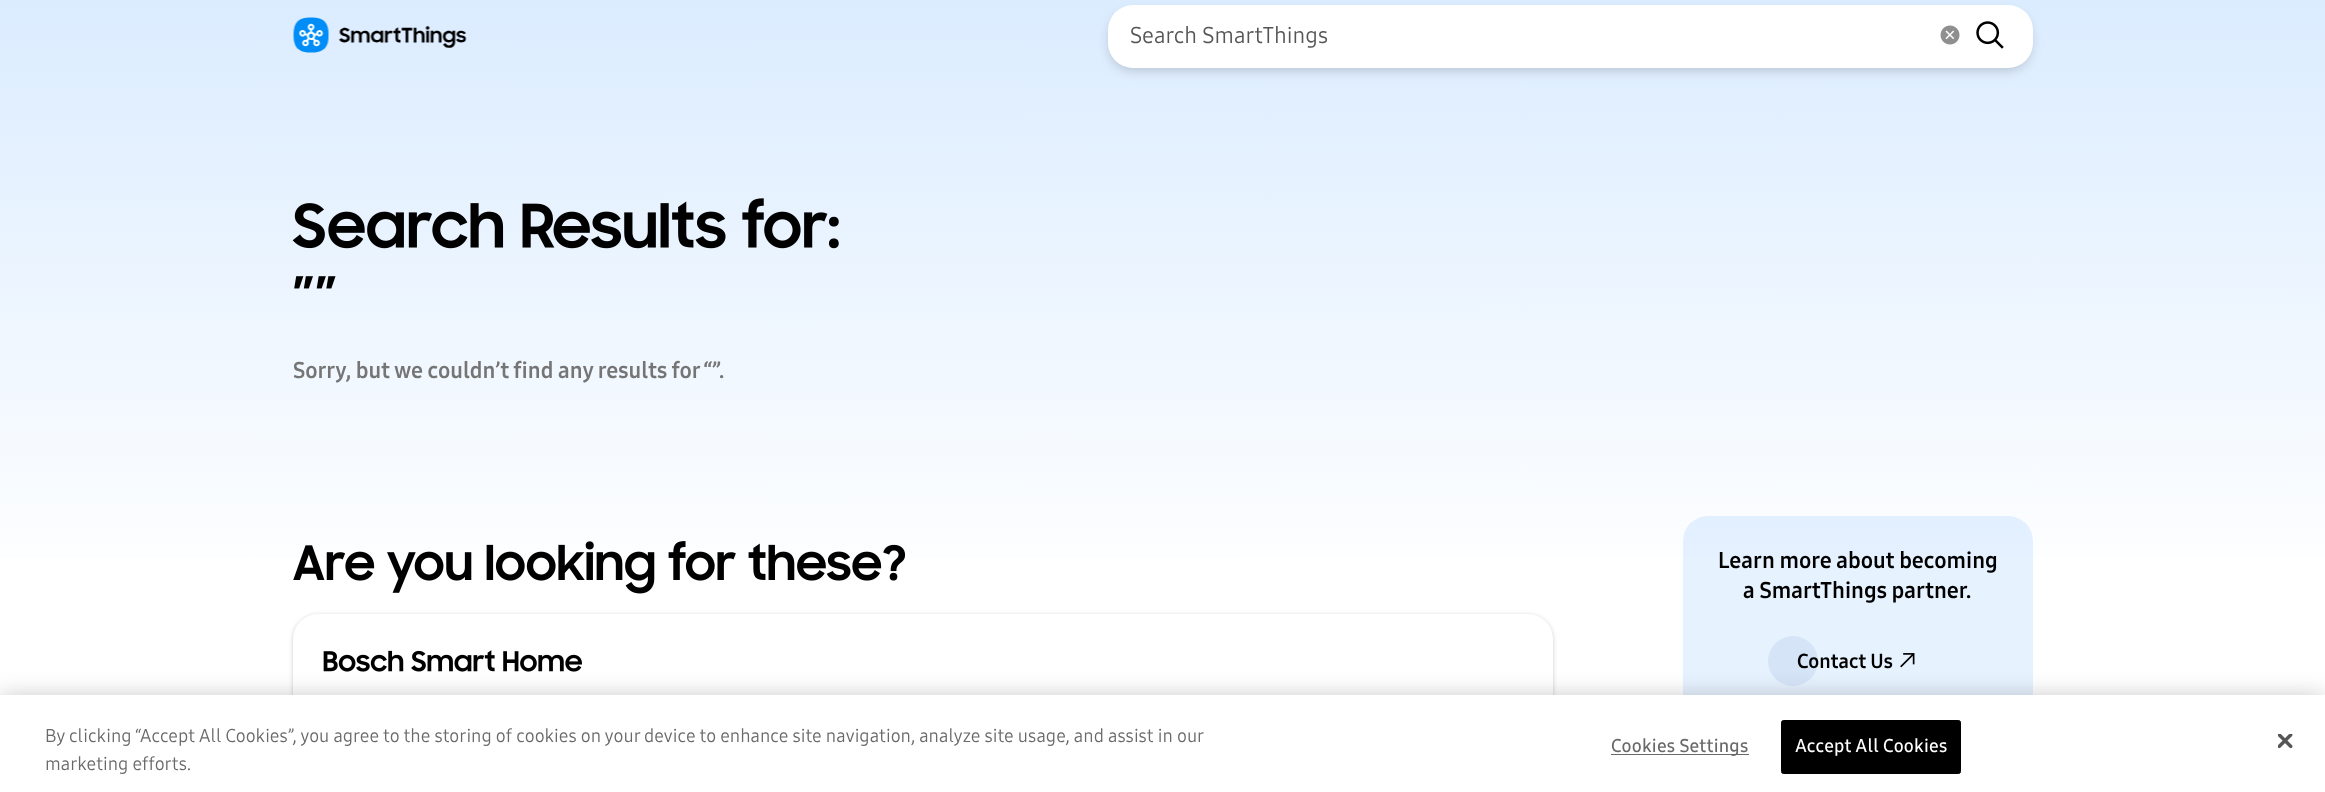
<svg xmlns="http://www.w3.org/2000/svg" width="2325" height="792" viewBox="0 0 2325 792">
  <style>
    .t1 { font: 22.5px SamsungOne; fill: #555; }
    .t2 { font: bold 22.5px SamsungOne; fill: #757575; }
    .t3 { font: bold 22.5px SamsungOne; fill: #000; }
    .t4 { font: bold 20px SamsungOne; fill: #000; }
    .t5 { font: 18.3px SamsungOne; fill: #696969; }
    .t6 { font: 600 18.3px SamsungOne; letter-spacing: 0.2px; fill: #696969; }
    .t7 { font: 600 18.3px SamsungOne; letter-spacing: 0.2px; fill: #fff; }
  </style>
  <defs>
    <linearGradient id="g1" gradientUnits="userSpaceOnUse" x1="1162" y1="0" x2="1163" y2="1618"><stop offset="0" stop-color="#dbecff"/><stop offset="0.37" stop-color="#fff"/></linearGradient>
  </defs>
  <rect width="100%" height="100%" fill="#fff"/>
  <rect x="0" y="0" width="2325" height="558" fill="url(#g1)"/>
  <image x="293" y="17" width="174" height="36" href="images/1.png"/>
  <rect x="1110" y="13" width="920" height="57" rx="23" fill="#00000033" filter="blur(6px)"/>
  <rect x="1108" y="5" width="925" height="63" rx="25" fill="#fff"/>
  <text x="1130" y="43" class="t1">Search SmartThings</text>
  <image x="1940" y="25" width="20" height="20" href="images/2.png"/>
  <image x="1976" y="21" width="28" height="28" href="images/3.png"/>
  <image x="292" y="198" width="547" height="51" href="images/4.png"/>
  <image x="294" y="276" width="19" height="13" href="images/5.png"/>
  <image x="316" y="276" width="20" height="13" href="images/6.png"/>
  <text x="293" y="378" class="t2">Sorry, but we couldn’t find any results for “”.</text>
  <image x="293" y="541" width="613" height="53" href="images/7.png"/>
  <rect x="293" y="615" width="1260" height="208" rx="25" fill="#00000033" filter="blur(2px)"/>
  <rect x="293" y="614" width="1260" height="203" rx="25" fill="#fff"/>
  <image x="323" y="650" width="259" height="22" href="images/8.png"/>
  <rect x="1683" y="516" width="350" height="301" rx="25" fill="#68aeff29"/>
  <text x="1718" y="568" class="t3">Learn more about becoming</text>
  <text x="1743" y="598" class="t3">a SmartThings partner.</text>
  <circle cx="1793" cy="661" r="25" fill="#d5e5f7"/>
  <text x="1797" y="668" class="t4">Contact Us</text>
  <image x="1900" y="653" width="15" height="15" href="images/9.png"/>
  <rect x="0" y="695" width="2325" height="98" fill="#00000033" filter="blur(11px)"/>
  <rect x="0" y="695" width="2325" height="97" fill="#fff"/>
  <text x="45" y="742" class="t5">By clicking “Accept All Cookies”, you agree to the storing of cookies on your device to enhance site navigation, analyze site usage, and assist in our</text>
  <text x="45" y="770" class="t5">marketing efforts.</text>
  <rect x="1611" y="754" width="138" height="1" fill="#696969"/>
  <text x="1611" y="752" class="t6">Cookies Settings</text>
  <rect x="1781.5" y="720.5" width="179" height="53" rx="2" fill="#000" stroke="#000"/>
  <text x="1795" y="752" class="t7">Accept All Cookies</text>
  <image x="2278" y="734" width="15" height="15" href="images/10.png"/>
</svg>
